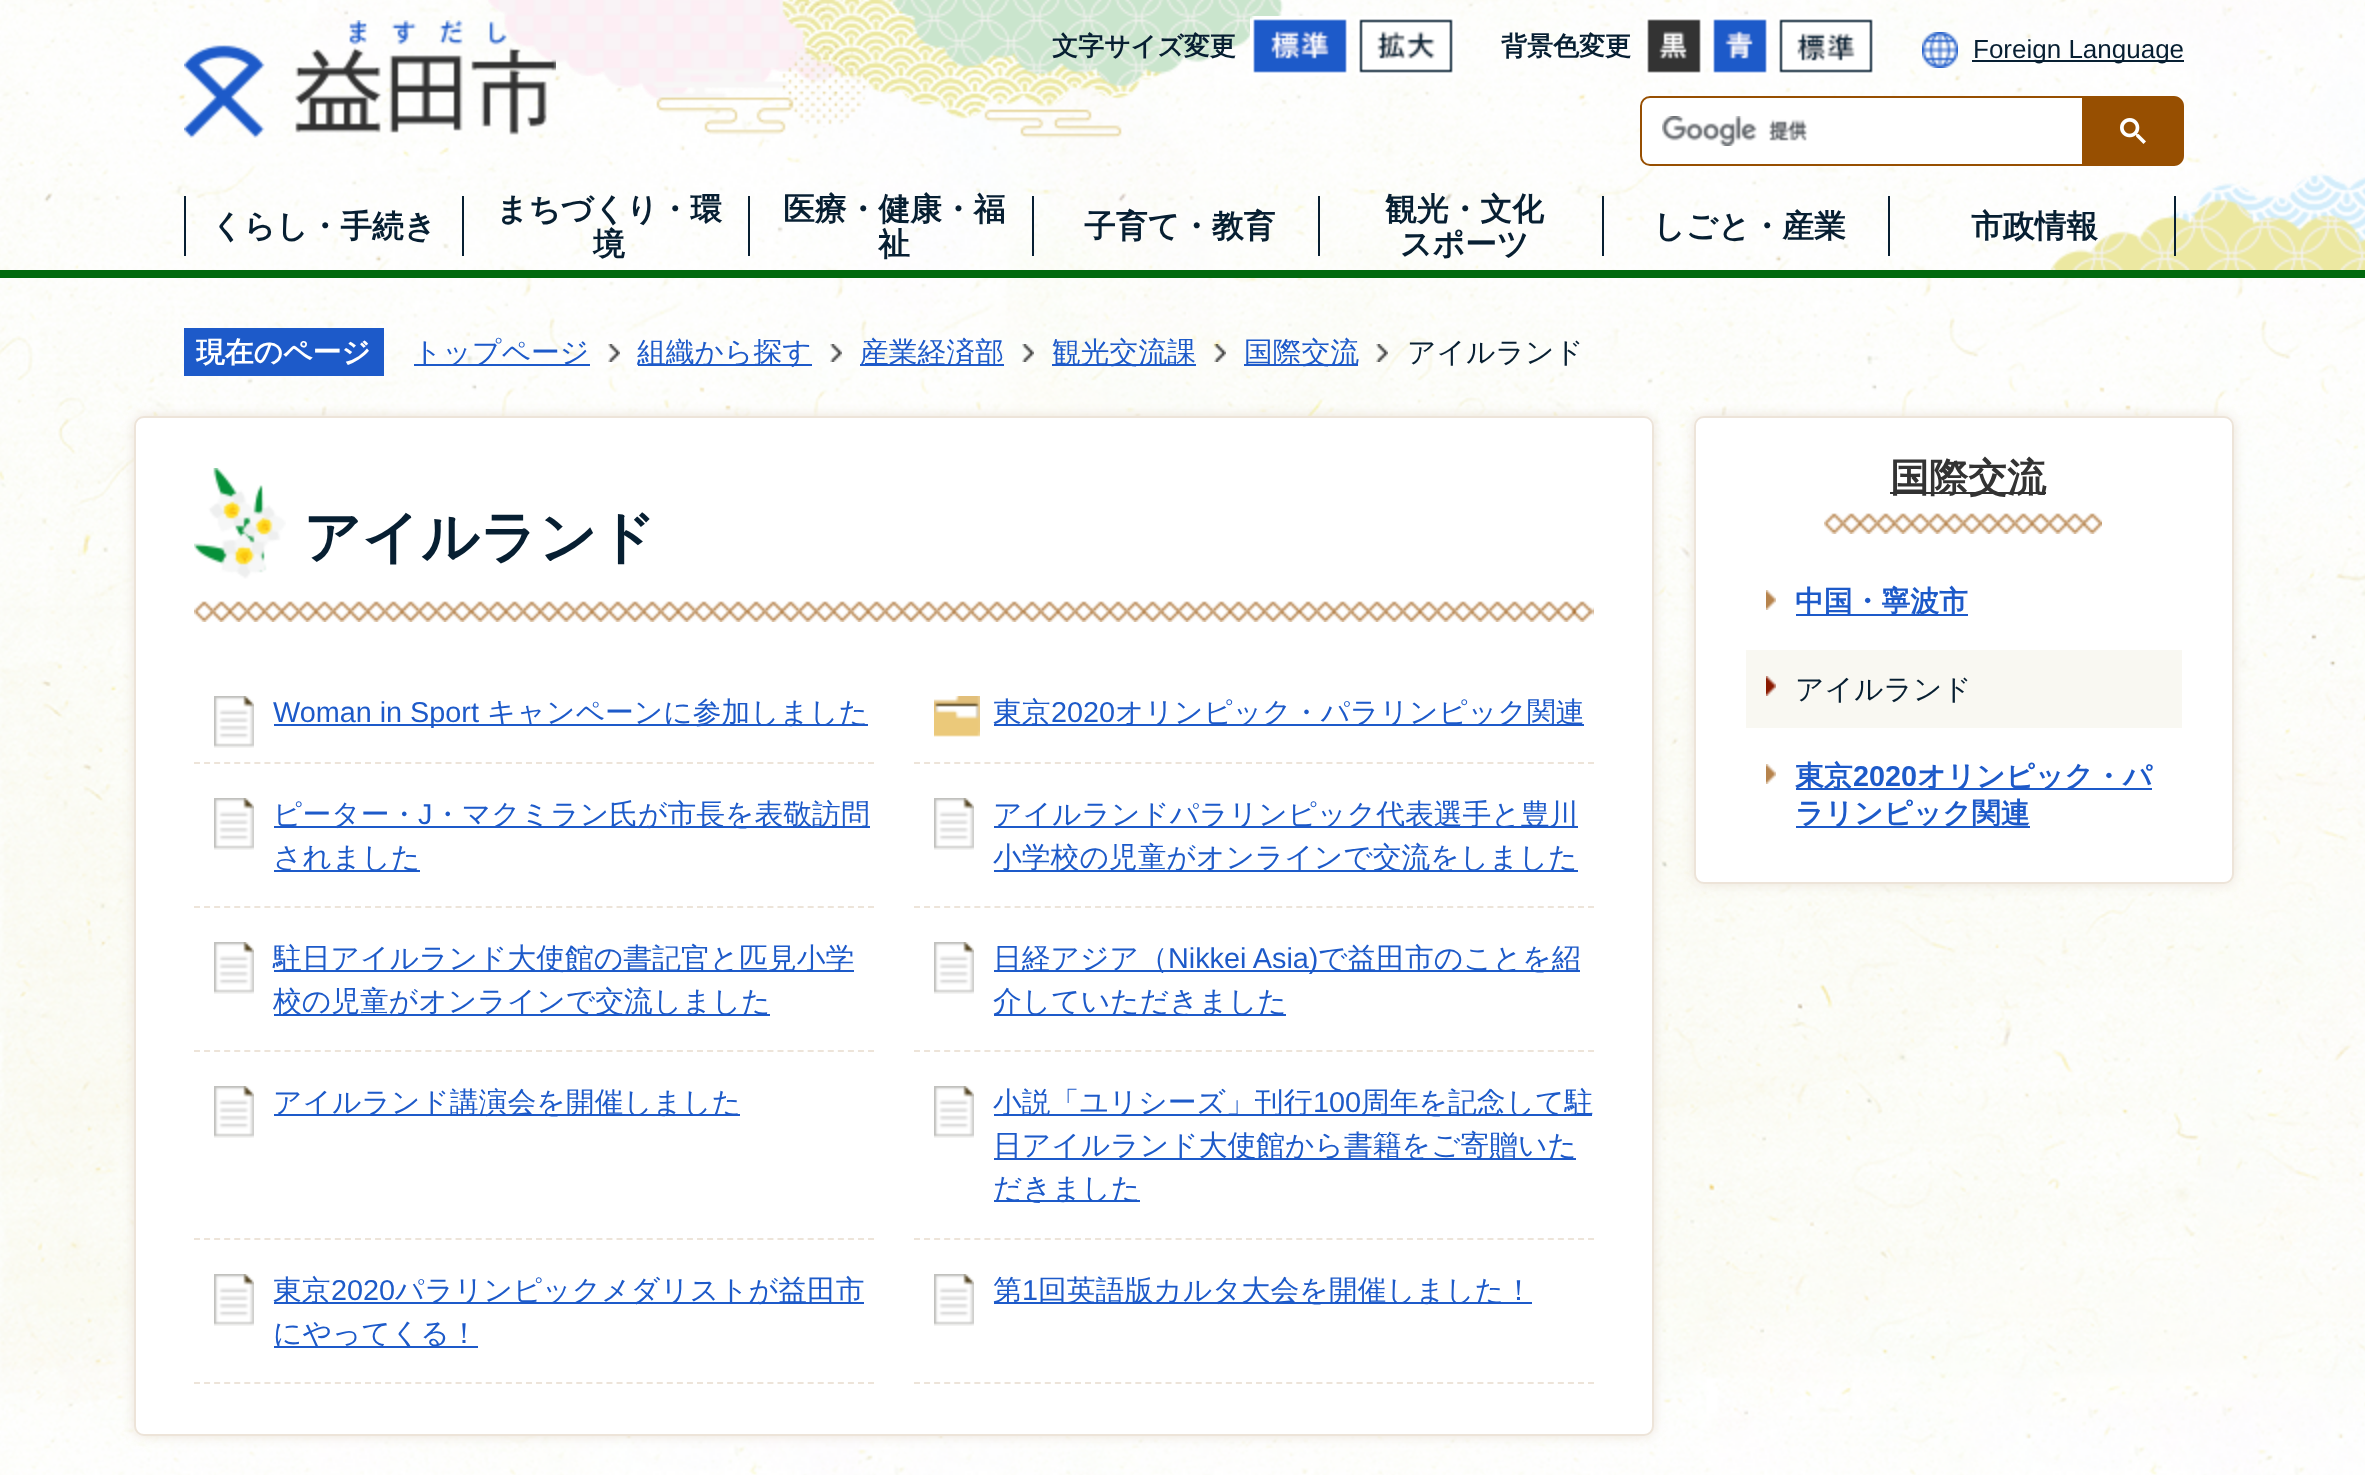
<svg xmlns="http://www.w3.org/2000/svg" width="2365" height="1475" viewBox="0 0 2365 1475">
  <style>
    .t1 { font: bold 26px WenQuanYi Zen Hei; fill: #071f32; }
    .t2 { font: 26px Liberation Sans; fill: #071f32; }
    .t3 { font: bold 31.75px WenQuanYi Zen Hei; fill: #071f32; }
    .t4 { font: bold 28.8px WenQuanYi Zen Hei; fill: #fff; }
    .t5 { font: 500 28.8px WenQuanYi Zen Hei; fill: #1d5ac9; }
    .t6 { font: 500 28.8px WenQuanYi Zen Hei; fill: #071f32; }
    .t7 { font: bold 57.5px WenQuanYi Zen Hei; fill: #071f32; }
    .t8 { font: 28.8px Liberation Sans; fill: #1d5ac9; }
    .t9 { font: bold 39px WenQuanYi Zen Hei; fill: #333; }
    .t10 { font: bold 28.8px WenQuanYi Zen Hei; fill: #1d5ac9; }
    .t11 { font: bold 28.8px Liberation Sans; fill: #1d5ac9; }
  </style>
  <rect width="100%" height="100%" fill="#fff"/>
  <image x="0" y="0" width="2365" height="1475" href="images/1.png"/>
  <image x="488" y="0" width="1877" height="270" href="images/2.png"/>
  <rect x="0" y="270" width="2365" height="8" fill="#01690e"/>
  <image x="184" y="20" width="372" height="118" href="images/3.png"/>
  <text x="1052" y="55" class="t1">文字サイズ変更</text>
  <image x="1250" y="16" width="100" height="60" href="images/4.png"/>
  <image x="1356" y="16" width="100" height="60" href="images/5.png"/>
  <text x="1501" y="55" class="t1">背景色変更</text>
  <image x="1646" y="16" width="58" height="60" href="images/6.png"/>
  <image x="1710" y="16" width="60" height="59" href="images/7.png"/>
  <image x="1779" y="16" width="97" height="59" href="images/8.png"/>
  <image x="1922" y="32" width="36" height="36" href="images/9.png"/>
  <rect x="1972" y="60" width="212" height="2" fill="#071f32"/>
  <text x="1973" y="58" class="t2">Foreign Language</text>
  <path d="M1650 97H2083V165H1650C1645 165 1641 161 1641 156V106C1641 101 1645 97 1650 97Z" fill="#fff" stroke="#974f01" stroke-width="2"/>
  <image x="1662" y="116" width="146" height="30" href="images/10.png"/>
  <path d="M2084 96H2174C2179.5 96 2184 100.5 2184 106V156C2184 161.5 2179.5 166 2174 166H2084Z" fill="#974f01"/>
  <image x="2120" y="118" width="26" height="26" href="images/11.png"/>
  <rect x="184" y="196" width="2" height="60" fill="#071f32"/>
  <text x="211" y="237" class="t3">くらし・手続き</text>
  <rect x="462" y="196" width="2" height="60" fill="#071f32"/>
  <text x="496" y="220" class="t3">まちづくり・環</text>
  <text x="593" y="255" class="t3">境</text>
  <rect x="748" y="196" width="2" height="60" fill="#071f32"/>
  <text x="783" y="220" class="t3">医療・健康・福</text>
  <text x="878" y="255" class="t3">祉</text>
  <rect x="1032" y="196" width="2" height="60" fill="#071f32"/>
  <text x="1084" y="237" class="t3">子育て・教育</text>
  <rect x="1318" y="196" width="2" height="60" fill="#071f32"/>
  <text x="1385" y="220" class="t3">観光・文化</text>
  <text x="1400" y="255" class="t3">スポーツ</text>
  <rect x="1602" y="196" width="2" height="60" fill="#071f32"/>
  <text x="1653" y="237" class="t3">しごと・産業</text>
  <rect x="1888" y="196" width="2" height="60" fill="#071f32"/>
  <text x="1971" y="237" class="t3">市政情報</text>
  <rect x="2174" y="196" width="2" height="60" fill="#071f32"/>
  <rect x="184" y="328" width="200" height="48" fill="#1d5ac9"/>
  <text x="196" y="362" class="t4">現在のページ</text>
  <rect x="414" y="364" width="176" height="2" fill="#1d5ac9"/>
  <text x="413" y="362" class="t5">トップページ</text>
  <image x="608" y="344" width="12" height="18" href="images/12.png"/>
  <rect x="638" y="364" width="174" height="2" fill="#1d5ac9"/>
  <text x="637" y="362" class="t5">組織から探す</text>
  <image x="830" y="344" width="12" height="18" href="images/13.png"/>
  <rect x="860" y="364" width="144" height="2" fill="#1d5ac9"/>
  <text x="860" y="362" class="t5">産業経済部</text>
  <image x="1022" y="344" width="12" height="18" href="images/14.png"/>
  <rect x="1052" y="364" width="144" height="2" fill="#1d5ac9"/>
  <text x="1052" y="362" class="t5">観光交流課</text>
  <image x="1214" y="344" width="12" height="18" href="images/15.png"/>
  <rect x="1244" y="364" width="114" height="2" fill="#1d5ac9"/>
  <text x="1244" y="362" class="t5">国際交流</text>
  <image x="1376" y="344" width="12" height="18" href="images/16.png"/>
  <text x="1407" y="362" class="t6">アイルランド</text>
  <rect x="134" y="416" width="1520" height="1020" rx="10" fill="#ede4d9" filter="blur(6px)"/>
  <rect x="135" y="417" width="1518" height="1018" rx="9" fill="#fff" stroke="#ede4d9" stroke-width="2"/>
  <image x="194" y="601" width="1400" height="21" href="images/17.png"/>
  <image x="194" y="468" width="92" height="111" href="images/18.png"/>
  <text x="303" y="557" class="t7">アイルランド</text>
  <image x="214" y="696" width="40" height="52" href="images/19.png"/>
  <path d="M194 763H874" fill="none" stroke="#ede4d9" stroke-width="2" stroke-dasharray="6 4.06"/>
  <rect x="274" y="724" width="594" height="2" fill="#1d5ac9"/>
  <text x="273" y="722" class="t8">Woman in Sport</text>
  <text x="487" y="722" class="t5">キャンペーンに参加しました</text>
  <image x="934" y="696" width="46" height="41" href="images/20.png"/>
  <path d="M914 763H1594" fill="none" stroke="#ede4d9" stroke-width="2" stroke-dasharray="6 4.06"/>
  <rect x="994" y="724" width="590" height="2" fill="#1d5ac9"/>
  <text x="993" y="722" class="t5">東京</text>
  <text x="1051" y="722" class="t8">2020</text>
  <text x="1115" y="722" class="t5">オリンピック・パラリンピック関連</text>
  <image x="214" y="798" width="40" height="52" href="images/19.png"/>
  <path d="M194 907H874" fill="none" stroke="#ede4d9" stroke-width="2" stroke-dasharray="6 4.06"/>
  <rect x="274" y="826" width="596" height="2" fill="#1d5ac9"/>
  <text x="273" y="824" class="t5">ピーター・</text>
  <text x="418" y="824" class="t8">J</text>
  <text x="433" y="824" class="t5">・マクミラン氏が市長を表敬訪問</text>
  <rect x="274" y="870" width="146" height="2" fill="#1d5ac9"/>
  <text x="273" y="867" class="t5">されました</text>
  <image x="934" y="798" width="40" height="52" href="images/19.png"/>
  <path d="M914 907H1594" fill="none" stroke="#ede4d9" stroke-width="2" stroke-dasharray="6 4.06"/>
  <rect x="994" y="826" width="584" height="2" fill="#1d5ac9"/>
  <text x="993" y="824" class="t5">アイルランドパラリンピック代表選手と豊川</text>
  <rect x="994" y="870" width="584" height="2" fill="#1d5ac9"/>
  <text x="993" y="867" class="t5">小学校の児童がオンラインで交流をしました</text>
  <image x="214" y="942" width="40" height="52" href="images/19.png"/>
  <path d="M194 1051H874" fill="none" stroke="#ede4d9" stroke-width="2" stroke-dasharray="6 4.06"/>
  <rect x="274" y="970" width="580" height="2" fill="#1d5ac9"/>
  <text x="273" y="968" class="t5">駐日アイルランド大使館の書記官と匹見小学</text>
  <rect x="274" y="1014" width="496" height="2" fill="#1d5ac9"/>
  <text x="273" y="1011" class="t5">校の児童がオンラインで交流しました</text>
  <image x="934" y="942" width="40" height="52" href="images/19.png"/>
  <path d="M914 1051H1594" fill="none" stroke="#ede4d9" stroke-width="2" stroke-dasharray="6 4.06"/>
  <rect x="994" y="970" width="586" height="2" fill="#1d5ac9"/>
  <text x="993" y="968" class="t5">日経アジア（</text>
  <text x="1168" y="968" class="t8">Nikkei Asia)</text>
  <text x="1318" y="968" class="t5">で益田市のことを紹</text>
  <rect x="994" y="1014" width="292" height="2" fill="#1d5ac9"/>
  <text x="993" y="1011" class="t5">介していただきました</text>
  <image x="214" y="1086" width="40" height="52" href="images/19.png"/>
  <path d="M194 1239H874" fill="none" stroke="#ede4d9" stroke-width="2" stroke-dasharray="6 4.06"/>
  <rect x="274" y="1114" width="466" height="2" fill="#1d5ac9"/>
  <text x="273" y="1112" class="t5">アイルランド講演会を開催しました</text>
  <image x="934" y="1086" width="40" height="52" href="images/19.png"/>
  <path d="M914 1239H1594" fill="none" stroke="#ede4d9" stroke-width="2" stroke-dasharray="6 4.06"/>
  <rect x="994" y="1114" width="598" height="2" fill="#1d5ac9"/>
  <text x="993" y="1112" class="t5">小説「ユリシーズ」刊行</text>
  <text x="1313" y="1112" class="t8">100</text>
  <text x="1361" y="1112" class="t5">周年を記念して駐</text>
  <rect x="994" y="1158" width="582" height="2" fill="#1d5ac9"/>
  <text x="993" y="1155" class="t5">日アイルランド大使館から書籍をご寄贈いた</text>
  <rect x="994" y="1200" width="146" height="2" fill="#1d5ac9"/>
  <text x="993" y="1198" class="t5">だきました</text>
  <image x="214" y="1274" width="40" height="52" href="images/19.png"/>
  <path d="M194 1383H874" fill="none" stroke="#ede4d9" stroke-width="2" stroke-dasharray="6 4.06"/>
  <rect x="274" y="1302" width="590" height="2" fill="#1d5ac9"/>
  <text x="273" y="1300" class="t5">東京</text>
  <text x="331" y="1300" class="t8">2020</text>
  <text x="395" y="1300" class="t5">パラリンピックメダリストが益田市</text>
  <rect x="274" y="1346" width="204" height="2" fill="#1d5ac9"/>
  <text x="273" y="1343" class="t5">にやってくる！</text>
  <image x="934" y="1274" width="40" height="52" href="images/19.png"/>
  <path d="M914 1383H1594" fill="none" stroke="#ede4d9" stroke-width="2" stroke-dasharray="6 4.06"/>
  <rect x="994" y="1302" width="538" height="2" fill="#1d5ac9"/>
  <text x="993" y="1300" class="t5">第</text>
  <text x="1022" y="1300" class="t8">1</text>
  <text x="1038" y="1300" class="t5">回英語版カルタ大会を開催しました！</text>
  <rect x="1694" y="416" width="540" height="468" rx="10" fill="#ede4d9" filter="blur(6px)"/>
  <rect x="1695" y="417" width="538" height="466" rx="9" fill="#fff" stroke="#ede4d9" stroke-width="2"/>
  <image x="1824" y="513" width="278" height="21" href="images/21.png"/>
  <rect x="1890" y="492" width="156" height="2" fill="#333"/>
  <text x="1890" y="491" class="t9">国際交流</text>
  <image x="1766" y="590" width="10" height="20" href="images/22.png"/>
  <rect x="1796" y="614" width="172" height="2" fill="#1d5ac9"/>
  <text x="1795" y="611" class="t10">中国・寧波市</text>
  <rect x="1746" y="650" width="436" height="78" fill="#f9f8f2"/>
  <image x="1766" y="676" width="10" height="20" href="images/23.png"/>
  <text x="1795" y="699" class="t6">アイルランド</text>
  <image x="1766" y="764" width="10" height="20" href="images/22.png"/>
  <rect x="1796" y="788" width="356" height="2" fill="#1d5ac9"/>
  <text x="1795" y="786" class="t10">東京</text>
  <text x="1853" y="786" class="t11">2020</text>
  <text x="1917" y="786" class="t10">オリンピック・パ</text>
  <rect x="1796" y="826" width="234" height="2" fill="#1d5ac9"/>
  <text x="1795" y="823" class="t10">ラリンピック関連</text>
</svg>
